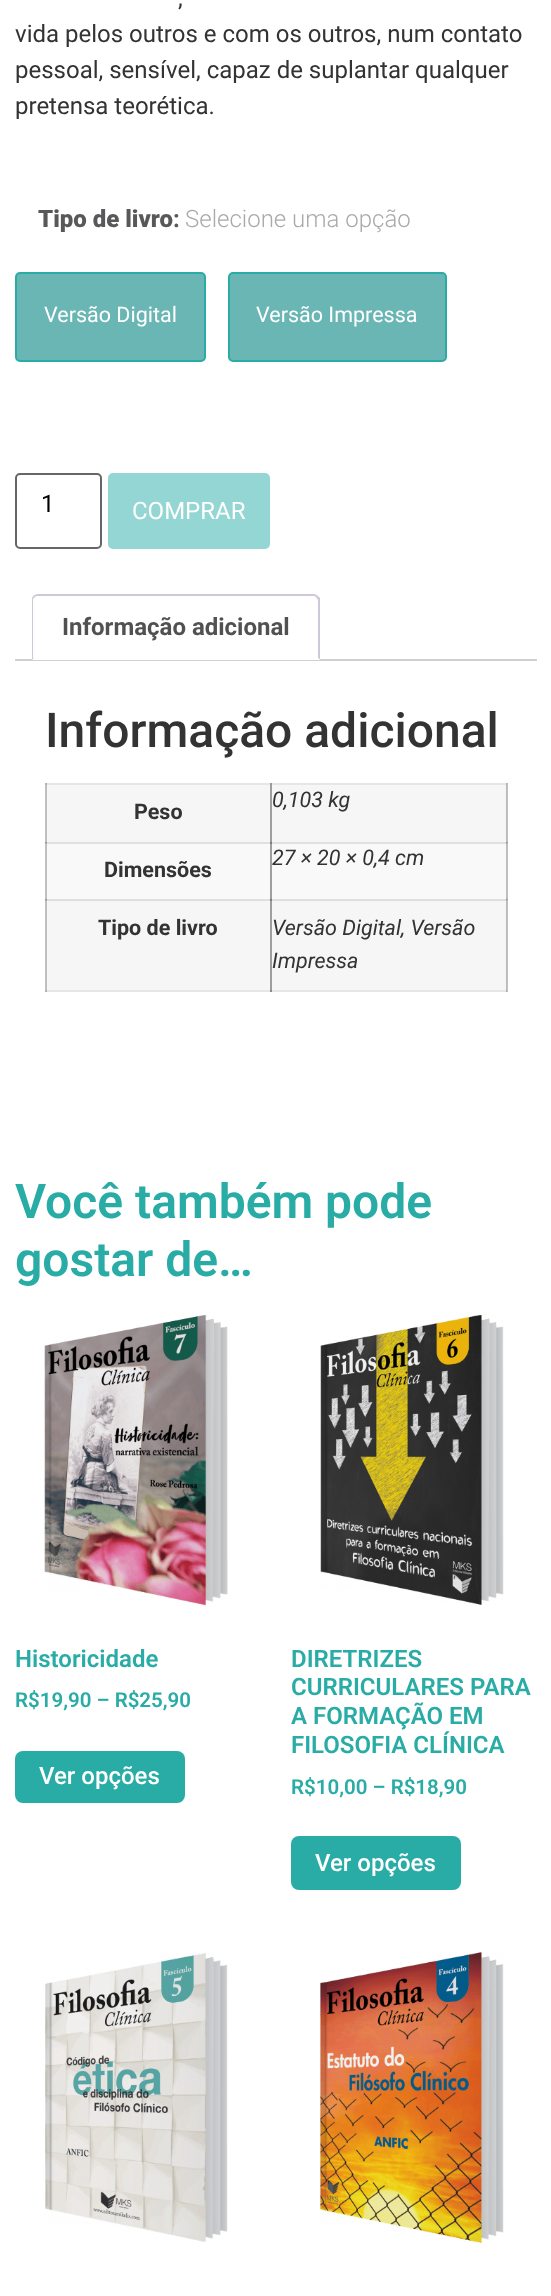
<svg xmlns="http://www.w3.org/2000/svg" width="551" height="2296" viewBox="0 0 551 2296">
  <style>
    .t1 { font: 24px Roboto; fill: #333; }
    .t2 { font: 900 24px Roboto; fill: #58585a; }
    .t3 { font: bold 24px Roboto; fill: #58585a; }
    .t4 { font: 300 24px Roboto; fill: #aaaaab; }
    .t5 { font: 21.5px Roboto; fill: #fff; }
    .t6 { font: 24px Roboto; fill: #000; }
    .t7 { font: 24px Roboto; fill: #fff; }
    .t8 { font: bold 24px Roboto; fill: #515151; }
    .t9 { font: 500 48px Roboto; fill: #333; }
    .t10 { font: bold 21.5px Roboto; fill: #333; }
    .t11 { font: italic 21.5px Roboto; fill: #333; }
    .t12 { font: 600 48px Roboto; fill: #29aca6; }
    .t13 { font: 600 24px Roboto; fill: #29aca6; }
    .t14 { font: 600 20.5px Roboto; fill: #29aca6; }
    .t15 { font: 500 24px Roboto; fill: #fff; }
  </style>
  <rect width="100%" height="100%" fill="#fff"/>
  <rect x="45" y="783" width="2" height="209" fill="#c0c0c0"/>
  <rect x="507" y="783" width="1" height="209" fill="#c0c0c0"/>
  <rect x="45" y="843" width="2" height="1" fill="#adadad"/>
  <rect x="45" y="842" width="2" height="1" fill="#979797"/>
  <rect x="506" y="842" width="2" height="1" fill="#a0a0a0"/>
  <rect x="45" y="900" width="2" height="1" fill="#adadad"/>
  <rect x="45" y="899" width="2" height="1" fill="#979797"/>
  <rect x="45" y="990" width="462" height="2" fill="#e6e6e6"/>
  <rect x="45" y="990" width="2" height="2" fill="#b3b3b3"/>
  <rect x="270" y="990" width="2" height="2" fill="#8b8b8b"/>
  <rect x="506" y="899" width="2" height="1" fill="#a0a0a0"/>
  <rect x="506" y="990" width="1" height="2" fill="#adadad"/>
  <text x="178" y="6" class="t1">,</text>
  <text x="15" y="42" class="t1">vida pelos outros e com os outros, num contato</text>
  <text x="15" y="78" class="t1">pessoal, sensível, capaz de suplantar qualquer</text>
  <text x="15" y="114" class="t1">pretensa teorética.</text>
  <text x="38" y="227" class="t2">Tipo de livro</text>
  <text x="173" y="227" class="t3">:</text>
  <text x="185" y="227" class="t4">Selecione uma opção</text>
  <rect x="16" y="273" width="189" height="88" rx="4" fill="#6ab6b5" stroke="#29aca6" stroke-width="2"/>
  <text x="44" y="322" class="t5">Versão Digital</text>
  <rect x="229" y="273" width="217" height="88" rx="4" fill="#6ab6b5" stroke="#29aca6" stroke-width="2"/>
  <text x="256" y="322" class="t5">Versão Impressa</text>
  <rect x="16" y="474" width="85" height="74" rx="4" fill="none" stroke="#666" stroke-width="2"/>
  <text x="41" y="512" class="t6">1</text>
  <rect x="108" y="473" width="162" height="76" rx="5" fill="#94d6d3"/>
  <text x="132" y="519" class="t7">COMPRAR</text>
  <rect x="15" y="659" width="522" height="2" fill="#d3ced2"/>
  <path d="M38 594H314C317.5 594 320 596.5 320 600V660H32V600C32 596.5 34.5 594 38 594Z" fill="#fff"/>
  <path d="M38 594C36 594 34 595 33 596L35 597C35 596 37 596 38 596H314L316 597L318 596C317 595 315 594 314 594Z" fill="#cfc8d8"/>
  <path d="M320 598V660L318 658V600L316 597L318 596Z" fill="#cfc8d8"/>
  <path d="M320 660L318 658H34L32 660Z" fill="#fff"/>
  <path d="M33 596C32 597 32 599 32 600V660L34 658H33V599L35 597Z" fill="#cfc8d8"/>
  <text x="62" y="635" class="t8">Informação adicional</text>
  <text x="45" y="747" class="t9">Informação adicional</text>
  <rect x="45" y="783" width="462" height="2" fill="#e6e6e6"/>
  <rect x="45" y="783" width="2" height="2" fill="#b3b3b3"/>
  <rect x="270" y="783" width="2" height="2" fill="#9a9a9a"/>
  <rect x="506" y="783" width="1" height="2" fill="#b3b3b3"/>
  <rect x="47" y="785" width="223" height="57" fill="#f6f6f6"/>
  <rect x="270" y="785" width="2" height="57" fill="#9e9e9e"/>
  <text x="134" y="819" class="t10">Peso</text>
  <rect x="272" y="785" width="234" height="57" fill="#f6f6f6"/>
  <rect x="506" y="785" width="1" height="57" fill="#bbb"/>
  <text x="272" y="807" class="t11">0,103 kg</text>
  <rect x="47" y="844" width="223" height="55" fill="#f9f9f9"/>
  <rect x="47" y="842" width="460" height="2" fill="#e0e0e0"/>
  <rect x="47" y="899" width="460" height="1" fill="#e0e0e0"/>
  <rect x="270" y="842" width="2" height="58" fill="#9f9f9f"/>
  <rect x="270" y="843" width="2" height="1" fill="#818181"/>
  <rect x="270" y="842" width="2" height="1" fill="#777"/>
  <rect x="270" y="899" width="2" height="1" fill="#777"/>
  <text x="104" y="877" class="t10">Dimensões</text>
  <rect x="272" y="844" width="234" height="55" fill="#f9f9f9"/>
  <rect x="506" y="842" width="1" height="58" fill="#bdbdbd"/>
  <rect x="506" y="842" width="1" height="2" fill="#aaa"/>
  <rect x="506" y="842" width="1" height="1" fill="#8f8f8f"/>
  <rect x="506" y="899" width="1" height="1" fill="#8f8f8f"/>
  <text x="272" y="865" class="t11">27 × 20 × 0,4 cm</text>
  <rect x="47" y="901" width="223" height="89" fill="#f6f6f6"/>
  <rect x="47" y="900" width="460" height="1" fill="#ddd"/>
  <rect x="270" y="900" width="2" height="90" fill="#9e9e9e"/>
  <rect x="270" y="900" width="2" height="1" fill="#808080"/>
  <text x="98" y="935" class="t10">Tipo de livro</text>
  <rect x="272" y="901" width="234" height="89" fill="#f6f6f6"/>
  <rect x="506" y="900" width="1" height="90" fill="#bbb"/>
  <rect x="506" y="900" width="1" height="1" fill="#a8a8a8"/>
  <text x="272" y="935" class="t11">Versão Digital, Versão</text>
  <text x="272" y="968" class="t11">Impressa</text>
  <text x="15" y="1218" class="t12">Você também pode</text>
  <text x="15" y="1276" class="t12">gostar de…</text>
  <image x="44" y="1315" width="184" height="291" href="images/1.png"/>
  <text x="15" y="1667" class="t13">Historicidade</text>
  <text x="15" y="1707" class="t14">R$19,90 – R$25,90</text>
  <rect x="15" y="1751" width="170" height="52" rx="8" fill="#29aca6"/>
  <text x="39" y="1784" class="t15">Ver opções</text>
  <image x="320" y="1314" width="184" height="291" href="images/2.png"/>
  <text x="291" y="1667" class="t13">DIRETRIZES</text>
  <text x="291" y="1695" class="t13">CURRICULARES PARA</text>
  <text x="291" y="1724" class="t13">A FORMAÇÃO EM</text>
  <text x="291" y="1753" class="t13">FILOSOFIA CLÍNICA</text>
  <text x="291" y="1794" class="t14">R$10,00 – R$18,90</text>
  <rect x="291" y="1836" width="170" height="54" rx="8" fill="#29aca6"/>
  <text x="315" y="1871" class="t15">Ver opções</text>
  <image x="45" y="1953" width="183" height="289" href="images/3.png"/>
  <image x="320" y="1952" width="184" height="291" href="images/4.png"/>
</svg>
